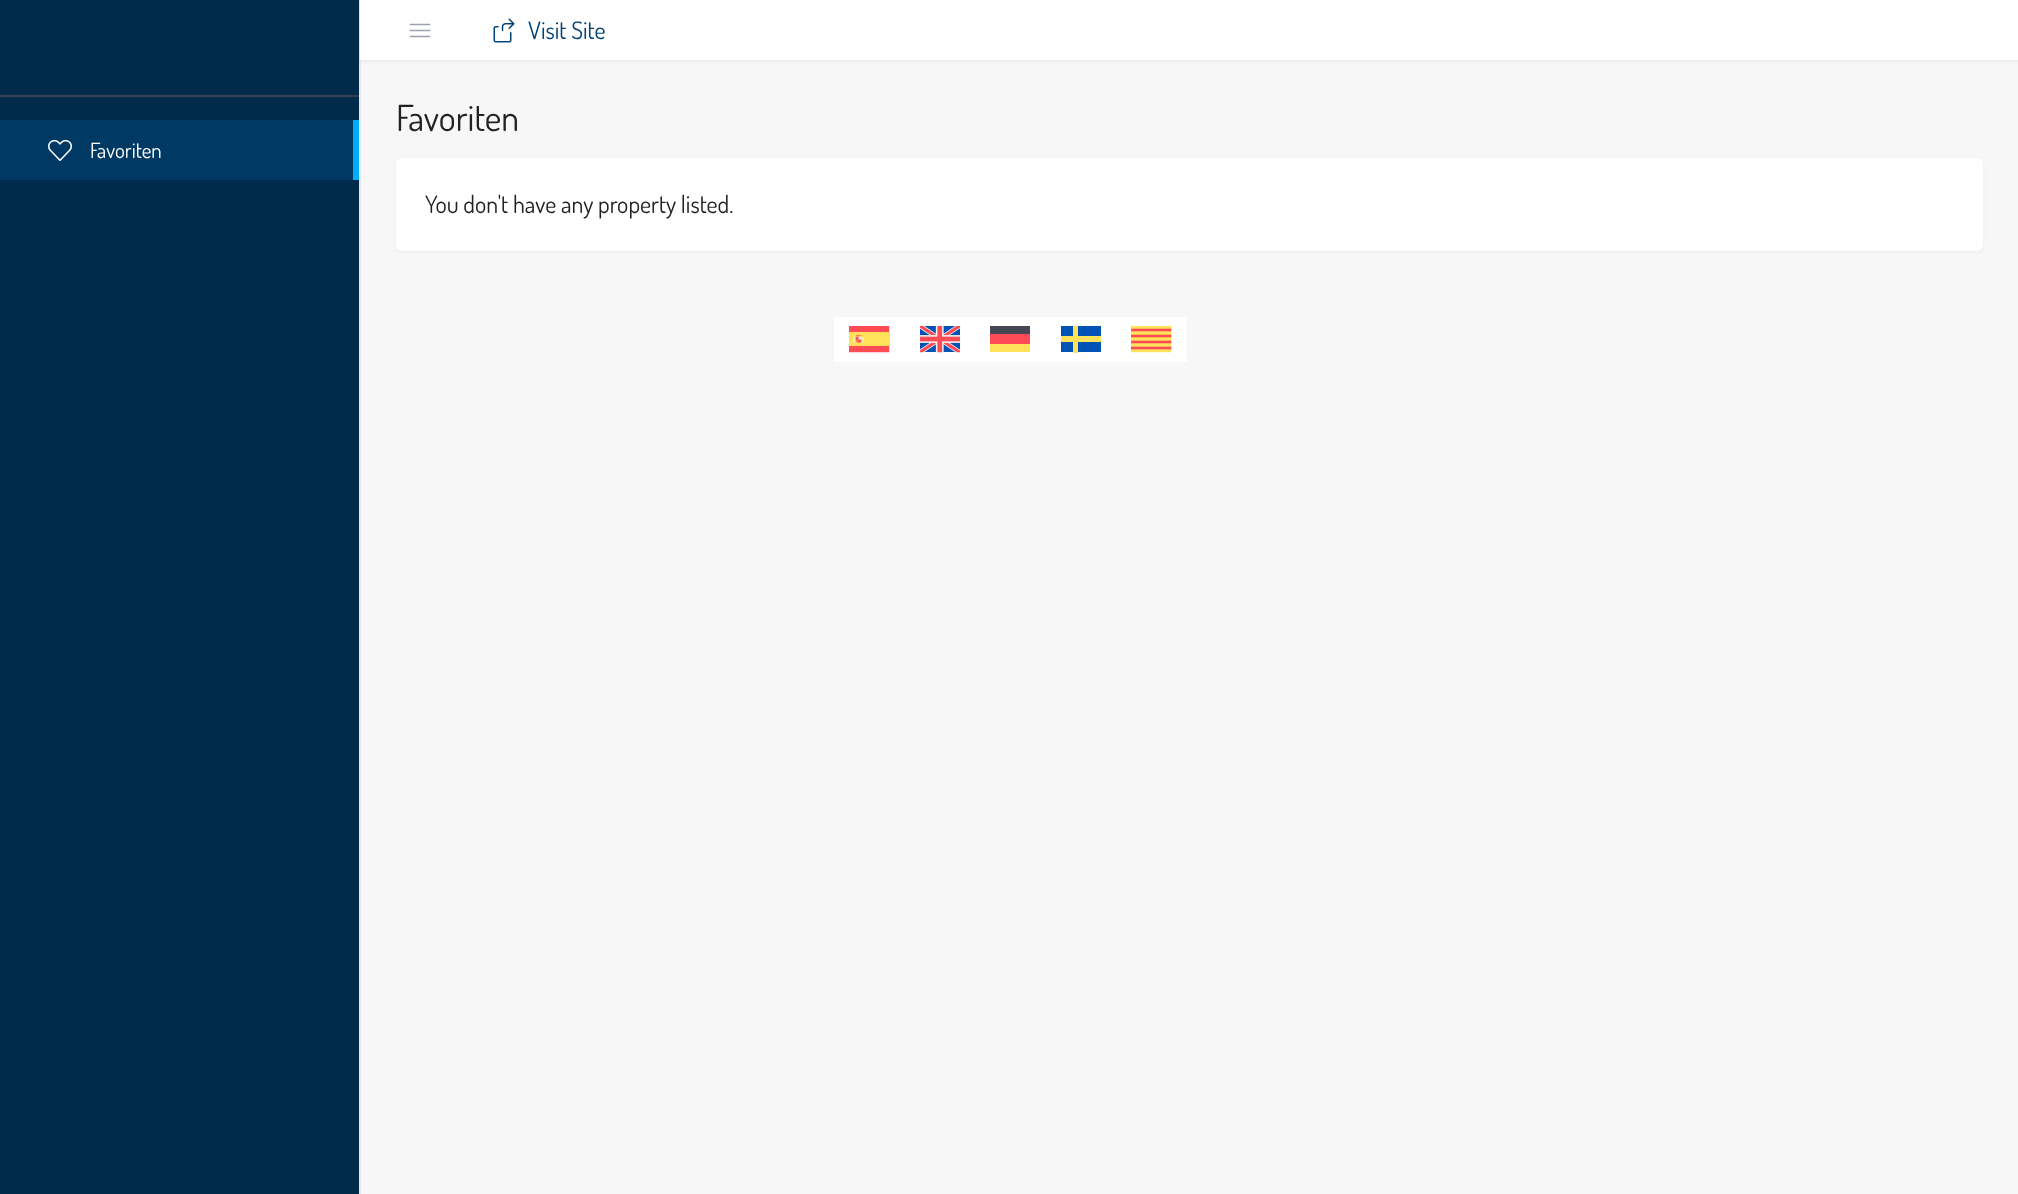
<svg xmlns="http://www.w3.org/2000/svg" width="2018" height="1194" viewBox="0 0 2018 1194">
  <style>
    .t1 { font: 21px Dosis; fill: #fff; }
    .t2 { font: 24px Dosis; fill: #004274; }
    .t3 { font: 36px Dosis; fill: #222; }
    .t4 { font: 24px Dosis; fill: #222; }
  </style>
  <rect width="100%" height="100%" fill="#f7f7f7"/>
  <rect x="0" y="0" width="359" height="1194" fill="#002b4b"/>
  <rect x="359" y="0" width="2" height="1194" fill="#e5e7eb"/>
  <rect x="0" y="95" width="359" height="2" fill="#374151"/>
  <rect x="0" y="120" width="353" height="60" fill="#003a64"/>
  <rect x="353" y="120" width="6" height="60" fill="#00aeff"/>
  <image x="48" y="139" width="24" height="22" href="images/1.png"/>
  <text x="90" y="158" class="t1">Favoriten</text>
  <rect x="360" y="2" width="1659" height="60" fill="#0000000d" filter="blur(1.5px)"/>
  <rect x="360" y="0" width="1658" height="60" fill="#fff"/>
  <image x="409" y="23" width="22" height="15" href="images/2.png"/>
  <image x="493" y="18" width="22" height="25" href="images/3.png"/>
  <text x="528" y="39" class="t2">Visit Site</text>
  <text x="396" y="131" class="t3">Favoriten</text>
  <rect x="396" y="159" width="1587" height="93" rx="6" fill="#0000000d" filter="blur(1.5px)"/>
  <rect x="396" y="158" width="1587" height="93" rx="6" fill="#fff"/>
  <text x="425" y="213" class="t4">You don't have any property listed.</text>
  <rect x="834" y="317" width="353" height="45" fill="#fff"/>
  <image x="849" y="326" width="41" height="27" href="images/4.png"/>
  <image x="920" y="326" width="40" height="27" href="images/5.png"/>
  <rect x="990" y="326" width="40" height="8" fill="#464655"/>
  <rect x="990" y="334" width="40" height="10" fill="#ff4b55"/>
  <rect x="990" y="344" width="40" height="8" fill="#ffe15a"/>
  <rect x="1061" y="326" width="40" height="26" fill="#0052b4"/>
  <rect x="1073" y="326" width="5" height="27" fill="#ffe15a"/>
  <rect x="1061" y="336" width="40" height="6" fill="#ffe15a"/>
  <image x="1131" y="326" width="41" height="27" href="images/6.png"/>
</svg>
